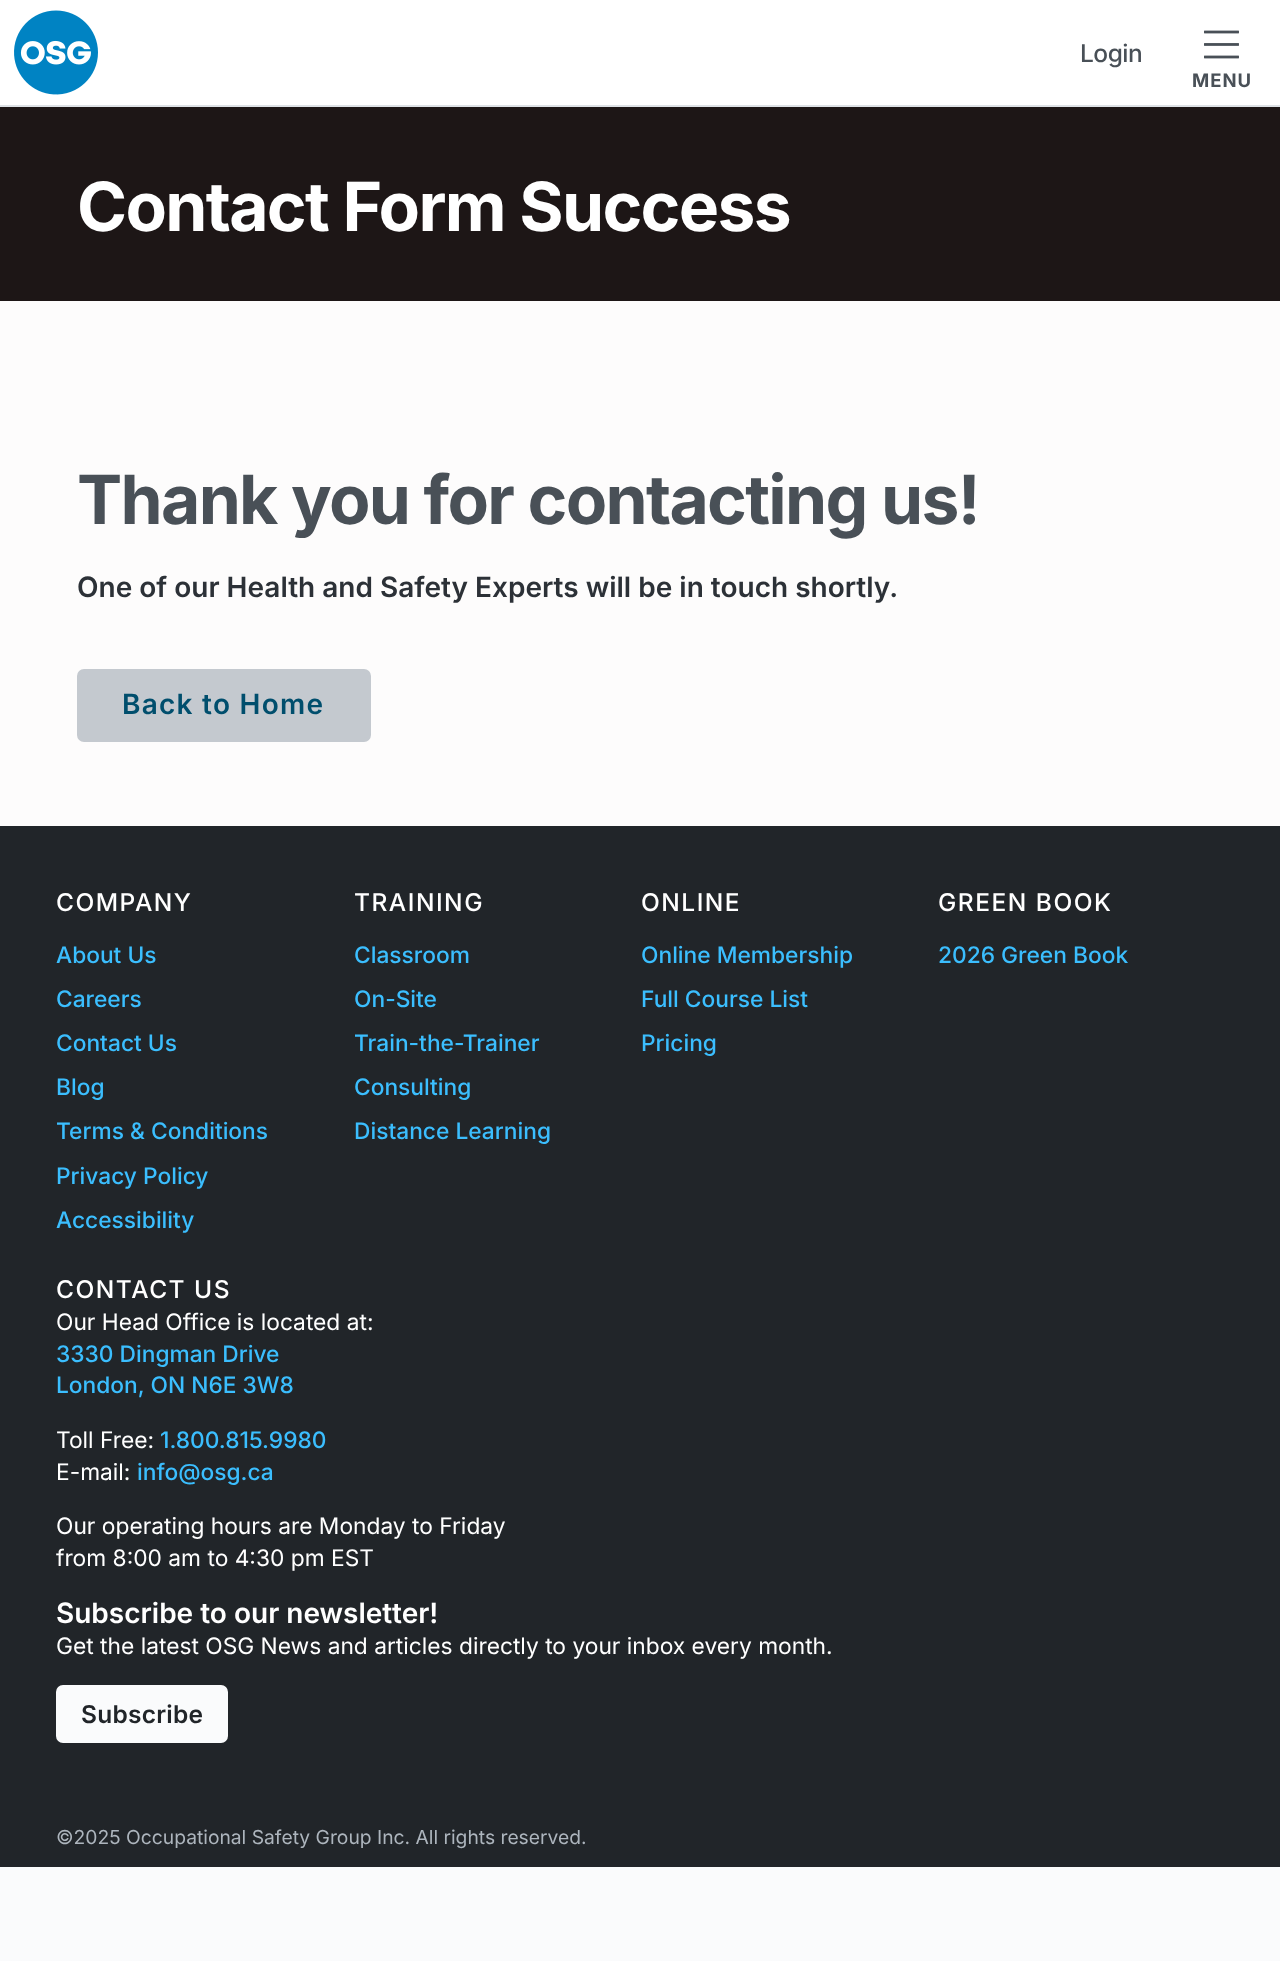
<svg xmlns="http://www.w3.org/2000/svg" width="1280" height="1961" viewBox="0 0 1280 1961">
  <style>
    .t1 { font: 500 24.5px Inter; letter-spacing: -0.5px; fill: #495057; }
    .t2 { font: bold 18.5px Inter; letter-spacing: 1px; fill: #495057; }
    .t3 { font: bold 67.75px Inter; letter-spacing: -1.7px; fill: #fff; }
    .t4 { font: bold 67.75px Inter; letter-spacing: -1.7px; fill: #495057; }
    .t5 { font: 600 28px Inter; fill: #2c3137; }
    .t6 { font: 600 28px Inter; letter-spacing: 1.25px; fill: #004e6d; }
    .t7 { font: 500 24.5px Inter; letter-spacing: 1.5px; fill: #fff; }
    .t8 { font: 500 22.75px Inter; fill: #3bbefe; }
    .t9 { font: 22.75px Inter; fill: #fff; }
    .t10 { font: 600 28px Inter; fill: #fff; }
    .t11 { font: 600 24.5px Inter; letter-spacing: 0.25px; fill: #212529; }
    .t12 { font: 19.25px Inter; fill: #adb5bd; }
  </style>
  <rect width="100%" height="100%" fill="#fafbfc"/>
  <rect x="0" y="301" width="1280" height="525" fill="#fdfcfc"/>
  <rect x="0" y="0" width="1280" height="105" fill="#fff"/>
  <rect x="0" y="105" width="1280" height="2" fill="#dee2e6"/>
  <image x="14" y="10" width="84" height="85" href="images/1.png"/>
  <text x="1080" y="62" class="t1">Login</text>
  <image x="1204" y="30" width="35" height="29" href="images/2.png"/>
  <text x="1192" y="87" class="t2">MENU</text>
  <rect x="0" y="107" width="1280" height="194" fill="#1d1616"/>
  <text x="77" y="231" class="t3">Contact Form Success</text>
  <text x="77" y="524" class="t4">Thank you for contacting us!</text>
  <text x="77" y="597" class="t5">One of our Health and Safety Experts will be in touch shortly.</text>
  <rect x="79" y="671" width="290" height="69" rx="5" fill="#c4c9cf" stroke="#c4c9cf" stroke-width="4"/>
  <text x="122" y="714" class="t6">Back to Home</text>
  <rect x="0" y="826" width="1280" height="1041" fill="#212529"/>
  <text x="56" y="911" class="t7">COMPANY</text>
  <text x="56" y="963" class="t8">About Us</text>
  <text x="56" y="1007" class="t8">Careers</text>
  <text x="56" y="1051" class="t8">Contact Us</text>
  <text x="56" y="1095" class="t8">Blog</text>
  <text x="56" y="1139" class="t8">Terms &amp; Conditions</text>
  <text x="56" y="1184" class="t8">Privacy Policy</text>
  <text x="56" y="1228" class="t8">Accessibility</text>
  <text x="354" y="911" class="t7">TRAINING</text>
  <text x="354" y="963" class="t8">Classroom</text>
  <text x="354" y="1007" class="t8">On-Site</text>
  <text x="354" y="1051" class="t8">Train-the-Trainer</text>
  <text x="354" y="1095" class="t8">Consulting</text>
  <text x="354" y="1139" class="t8">Distance Learning</text>
  <text x="641" y="911" class="t7">ONLINE</text>
  <text x="641" y="963" class="t8">Online Membership</text>
  <text x="641" y="1007" class="t8">Full Course List</text>
  <text x="641" y="1051" class="t8">Pricing</text>
  <text x="938" y="911" class="t7">GREEN BOOK</text>
  <text x="938" y="963" class="t8">2026 Green Book</text>
  <text x="56" y="1298" class="t7">CONTACT US</text>
  <text x="56" y="1330" class="t9">Our Head Office is located at:</text>
  <text x="56" y="1362" class="t8">3330 Dingman Drive</text>
  <text x="56" y="1393" class="t8">London, ON N6E 3W8</text>
  <text x="56" y="1448" class="t9">Toll Free:</text>
  <text x="160" y="1448" class="t8">1.800.815.9980</text>
  <text x="56" y="1480" class="t9">E-mail:</text>
  <text x="137" y="1480" class="t8">info@osg.ca</text>
  <text x="56" y="1534" class="t9">Our operating hours are Monday to Friday</text>
  <text x="56" y="1566" class="t9">from 8:00 am to 4:30 pm EST</text>
  <text x="56" y="1623" class="t10">Subscribe to our newsletter!</text>
  <text x="56" y="1654" class="t9">Get the latest OSG News and articles directly to your inbox every month.</text>
  <rect x="58" y="1687" width="168" height="54" rx="5" fill="#fafbfc" stroke="#fafbfc" stroke-width="4"/>
  <text x="81" y="1723" class="t11">Subscribe</text>
  <text x="56" y="1844" class="t12">©2025 Occupational Safety Group Inc. All rights reserved.</text>
</svg>
